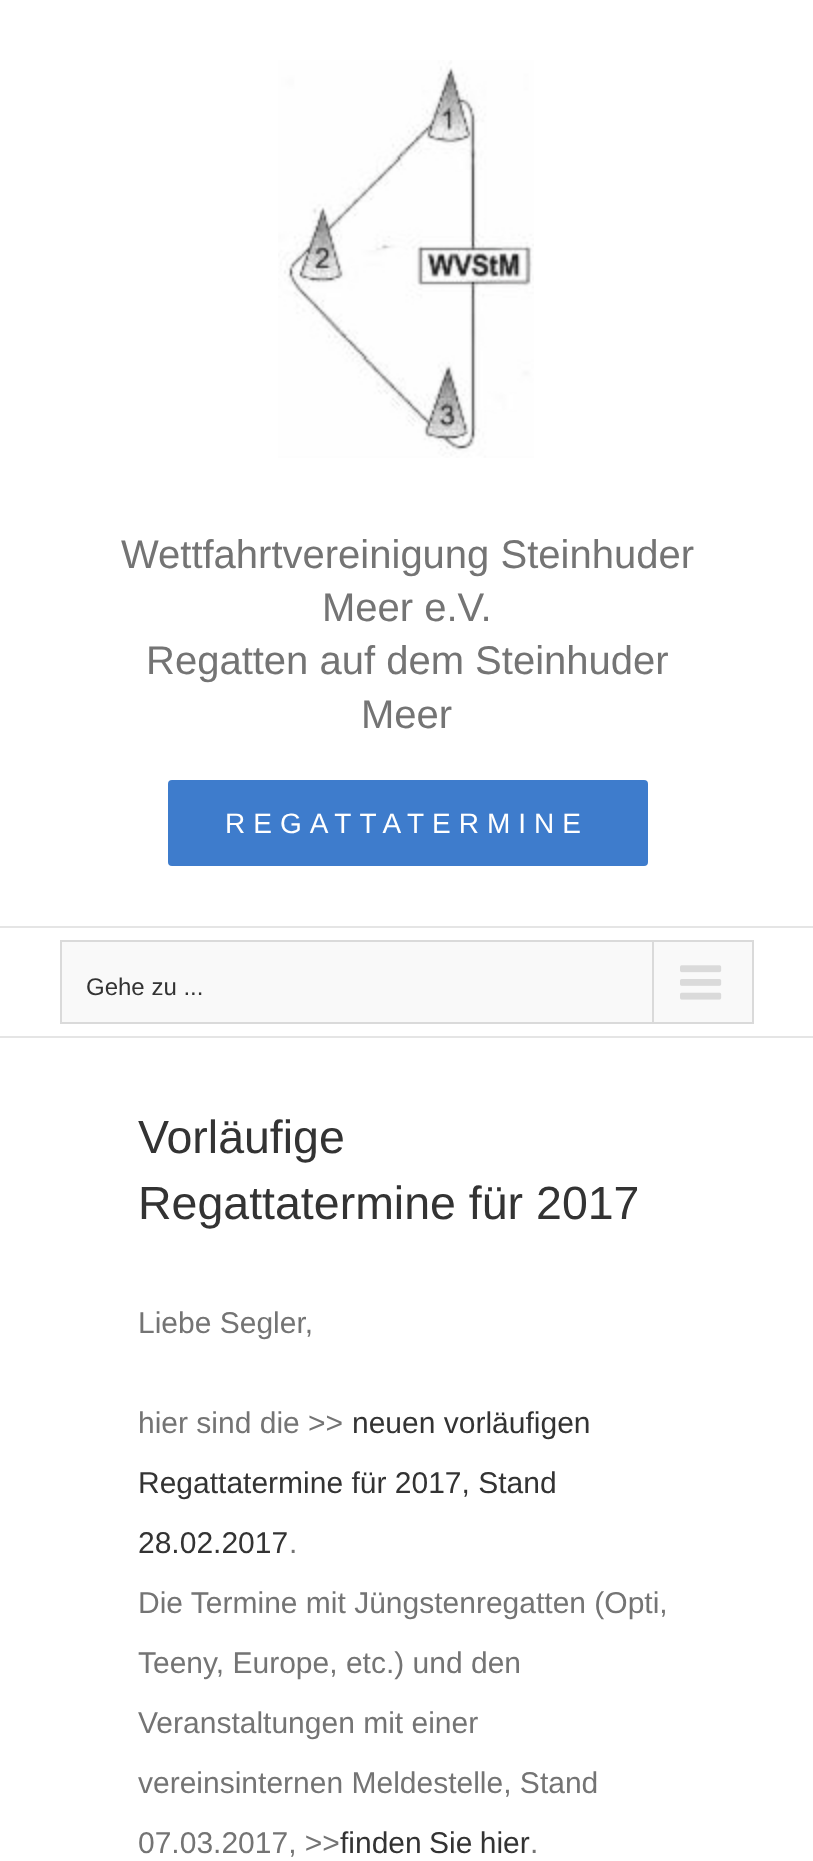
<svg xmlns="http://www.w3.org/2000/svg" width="813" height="1861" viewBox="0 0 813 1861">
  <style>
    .t1 { font: 40px Liberation Sans; fill: #747474; }
    .t2 { font: 28px Liberation Sans; letter-spacing: 8px; fill: #fff; }
    .t3 { font: 24px Liberation Sans; fill: #333; }
    .t4 { font: 46.5px Liberation Sans; fill: #333; }
    .t5 { font: 30px Liberation Sans; fill: #747474; }
    .t6 { font: 30px Liberation Sans; fill: #333; }
  </style>
  <rect width="100%" height="100%" fill="#fff"/>
  <rect x="0" y="926" width="813" height="2" fill="#e5e5e5"/>
  <image x="278" y="60" width="256" height="398" href="images/1.png"/>
  <text x="121" y="568" class="t1">Wettfahrtvereinigung Steinhuder</text>
  <text x="322" y="621" class="t1">Meer e.V.</text>
  <text x="146" y="674" class="t1">Regatten auf dem Steinhuder</text>
  <text x="361" y="728" class="t1">Meer</text>
  <rect x="168" y="780" width="480" height="86" rx="4" fill="#3e7ccc"/>
  <text x="225" y="833" class="t2">REGATTATERMINE</text>
  <rect x="0" y="1036" width="813" height="2" fill="#e5e5e5"/>
  <rect x="61" y="941" width="692" height="82" fill="#f9f9f9" stroke="#dadada" stroke-width="2"/>
  <text x="86" y="995" class="t3">Gehe zu ...</text>
  <rect x="652" y="942" width="2" height="80" fill="#dadada"/>
  <image x="680" y="965" width="42" height="35" href="images/2.png"/>
  <text x="138" y="1153" class="t4">Vorläufige</text>
  <text x="138" y="1219" class="t4">Regattatermine für 2017</text>
  <text x="138" y="1333" class="t5">Liebe Segler,</text>
  <text x="138" y="1433" class="t5">hier sind die &gt;&gt;</text>
  <text x="352" y="1433" class="t6">neuen vorläufigen</text>
  <text x="138" y="1493" class="t6">Regattatermine für 2017, Stand</text>
  <text x="138" y="1553" class="t6">28.02.2017</text>
  <text x="289" y="1553" class="t5">.</text>
  <text x="138" y="1613" class="t5">Die Termine mit Jüngstenregatten (Opti,</text>
  <text x="138" y="1673" class="t5">Teeny, Europe, etc.) und den</text>
  <text x="138" y="1733" class="t5">Veranstaltungen mit einer</text>
  <text x="138" y="1793" class="t5">vereinsinternen Meldestelle, Stand</text>
  <text x="138" y="1853" class="t5">07.03.2017, &gt;&gt;</text>
  <text x="340" y="1853" word-spacing="-1" class="t6">finden Sie hier</text>
  <text x="530" y="1853" class="t5">.</text>
</svg>
